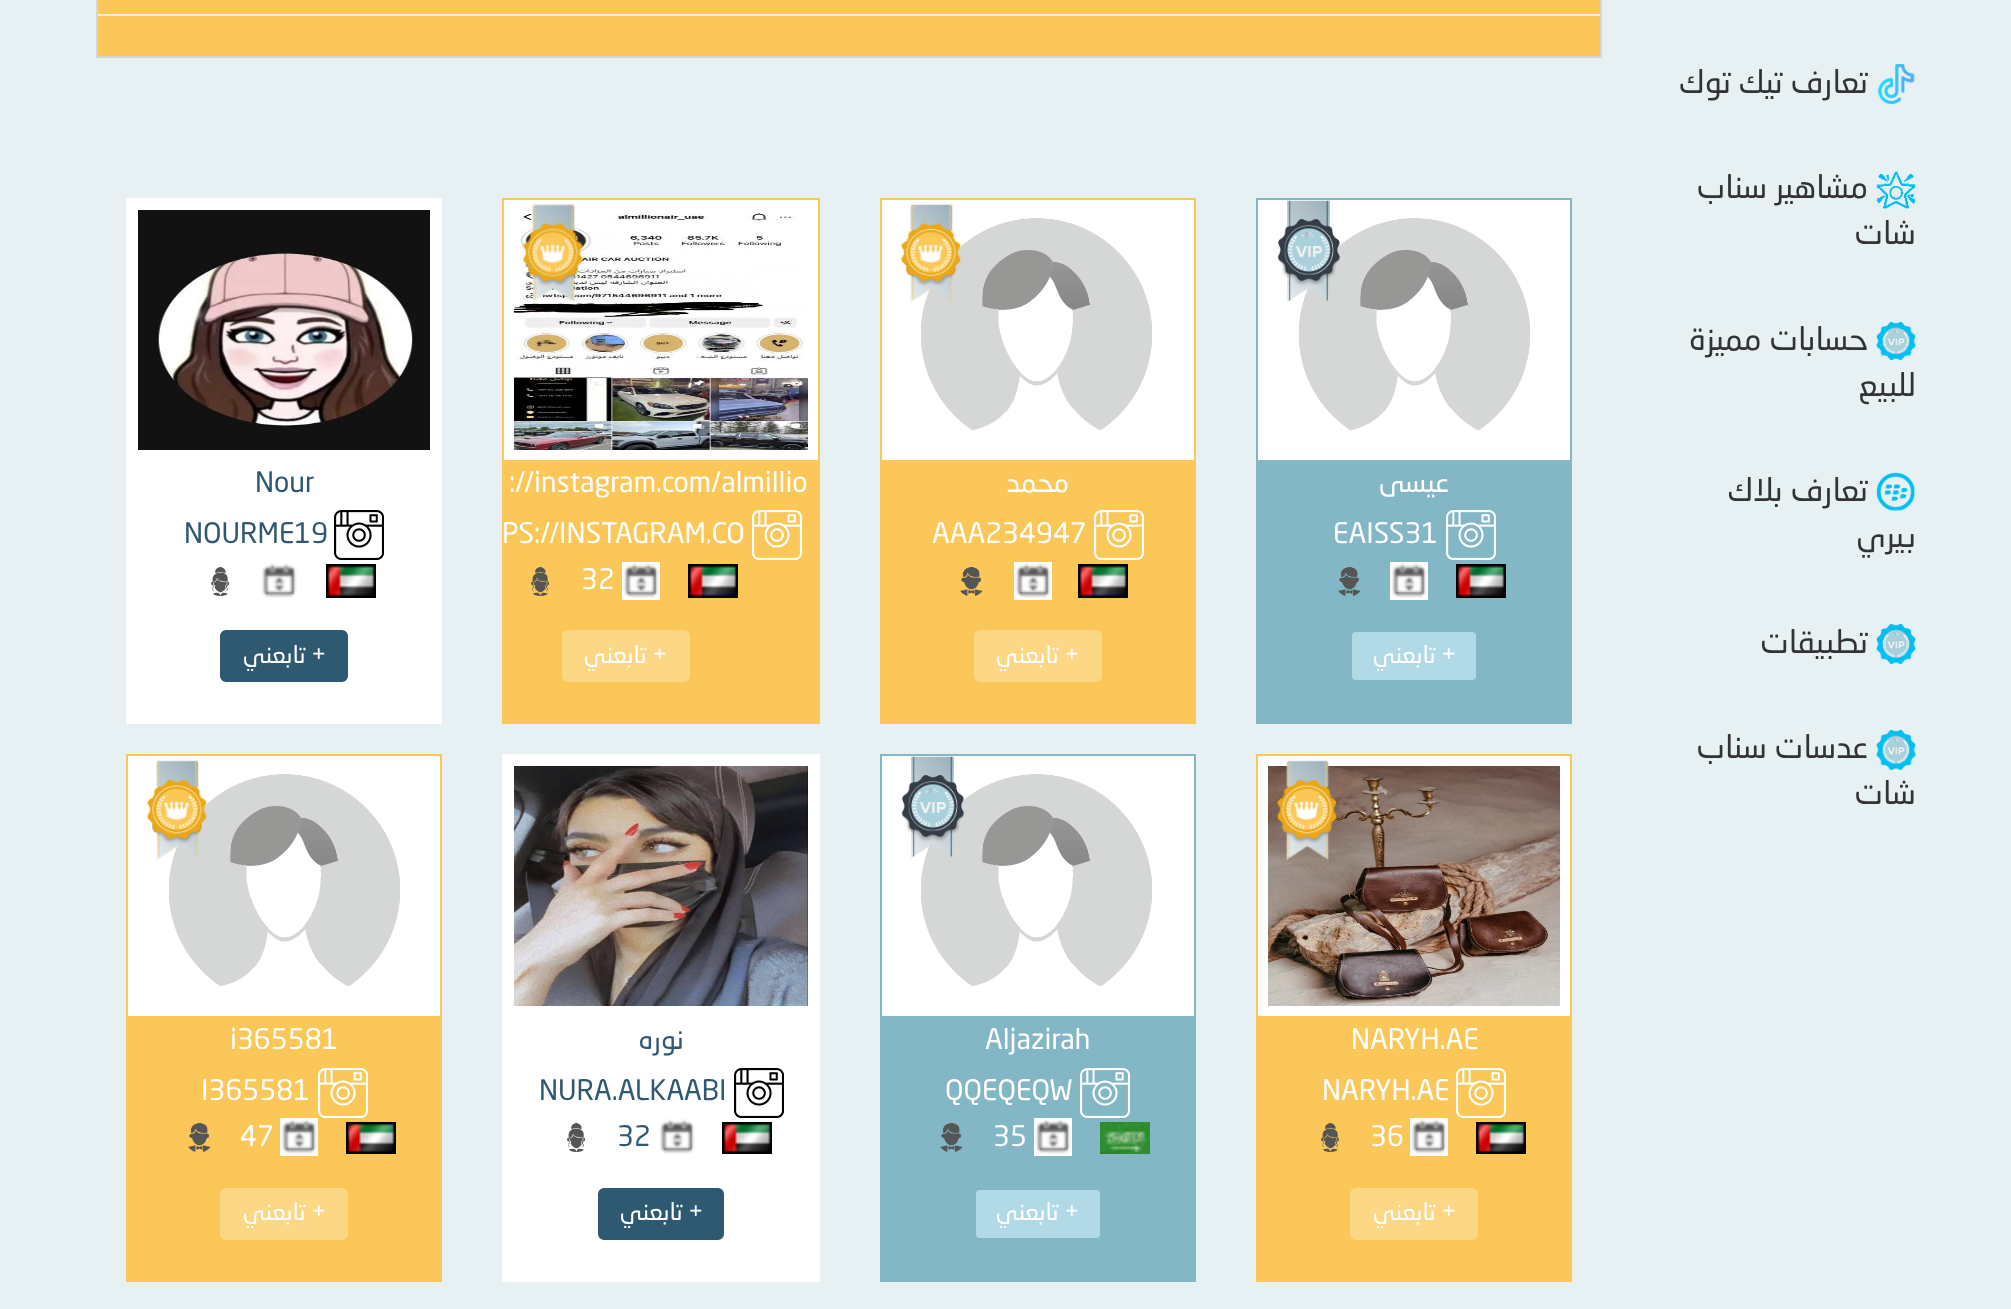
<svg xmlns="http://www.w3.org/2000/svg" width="2011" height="1309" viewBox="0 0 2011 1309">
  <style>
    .t1 { font: 32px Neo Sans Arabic; direction: rtl; fill: #333; }
    .t2 { font: 28px Neo Sans Arabic; direction: rtl; fill: #fff; }
    .t3 { font: 28px Neo Sans Arabic; fill: #fff; }
    .t4 { font: 24px Neo Sans Arabic; direction: rtl; fill: #fff; }
    .t5 { font: 28px Neo Sans Arabic; fill: #2f5971; }
    .t6 { font: 28px Neo Sans Arabic; direction: rtl; fill: #2f5971; }
  </style>
  <rect width="100%" height="100%" fill="#e7f1f4"/>
  <image x="1877" y="64" width="38" height="40" href="images/1.png"/>
  <text x="1868" y="93" class="t1">تعارف تيك توك</text>
  <image x="1876" y="171" width="40" height="38" href="images/2.png"/>
  <text x="1868" y="198" class="t1">مشاهير سناب</text>
  <text x="1916" y="244" class="t1">شات</text>
  <image x="1876" y="322" width="40" height="38" href="images/3.png"/>
  <text x="1868" y="350" class="t1">حسابات مميزة</text>
  <text x="1916" y="396" class="t1">للبيع</text>
  <image x="1876" y="472" width="39" height="39" href="images/4.png"/>
  <text x="1868" y="501" class="t1">تعارف بلاك</text>
  <text x="1916" y="547" class="t1">بيري</text>
  <image x="1876" y="624" width="40" height="40" href="images/5.png"/>
  <text x="1868" y="653" class="t1">تطبيقات</text>
  <image x="1876" y="730" width="40" height="40" href="images/5.png"/>
  <text x="1868" y="758" class="t1">عدسات سناب</text>
  <text x="1916" y="804" class="t1">شات</text>
  <rect x="97" y="-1" width="1504" height="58" fill="#fbc759" stroke="#d3d5d6" stroke-width="2"/>
  <rect x="98" y="14" width="1502" height="2" fill="#eee"/>
  <rect x="1256" y="198" width="316" height="526" fill="#83b7c6"/>
  <rect x="1258" y="200" width="312" height="260" fill="#fff"/>
  <image x="1299" y="218" width="231" height="213" href="images/7.png"/>
  <image x="1277" y="200" width="64" height="102" href="images/6.png"/>
  <text x="1449" y="492" class="t2">عيسى</text>
  <image x="1446" y="510" width="50" height="50" href="images/8.png"/>
  <text x="1333" y="543" class="t3">EAISS31</text>
  <image x="1456" y="564" width="50" height="34" href="images/9.png"/>
  <image x="1390" y="562" width="38" height="38" href="images/10.png"/>
  <image x="1338" y="567" width="23" height="29" href="images/11.png"/>
  <rect x="1351" y="631" width="126" height="50" rx="5" fill="#b2dae6" stroke="#83b7c6" stroke-width="2"/>
  <text x="1456" y="663" class="t4">+ تابعني</text>
  <rect x="880" y="198" width="316" height="526" fill="#fbc759"/>
  <rect x="882" y="200" width="312" height="260" fill="#fff"/>
  <image x="921" y="218" width="231" height="213" href="images/7.png"/>
  <image x="900" y="203" width="62" height="100" href="images/12.png"/>
  <text x="1069" y="492" class="t2">محمد</text>
  <image x="1094" y="510" width="50" height="50" href="images/13.png"/>
  <text x="932" y="543" class="t3">AAA234947</text>
  <image x="1078" y="564" width="50" height="34" href="images/14.png"/>
  <image x="1014" y="562" width="38" height="38" href="images/10.png"/>
  <image x="960" y="567" width="23" height="29" href="images/15.png"/>
  <rect x="975" y="631" width="126" height="50" rx="5" fill="#fcd785" stroke="#fcd785" stroke-width="2"/>
  <text x="1079" y="663" class="t4">+ تابعني</text>
  <rect x="502" y="198" width="318" height="526" fill="#fbc759"/>
  <rect x="504" y="200" width="314" height="260" fill="#fff"/>
  <image x="514" y="213" width="294" height="237" href="images/17.png"/>
  <image x="522" y="203" width="62" height="100" href="images/16.png"/>
  <text x="509" y="492" class="t3">://instagram.com/almillio</text>
  <image x="752" y="510" width="50" height="50" href="images/13.png"/>
  <text x="502" y="543" class="t3">PS://INSTAGRAM.CO</text>
  <image x="688" y="564" width="50" height="34" href="images/9.png"/>
  <image x="622" y="562" width="38" height="38" href="images/10.png"/>
  <text x="581" y="589" class="t3">32</text>
  <image x="531" y="567" width="19" height="29" href="images/18.png"/>
  <rect x="563" y="631" width="126" height="50" rx="5" fill="#fcd785" stroke="#fcd785" stroke-width="2"/>
  <text x="667" y="663" class="t4">+ تابعني</text>
  <rect x="126" y="198" width="316" height="526" fill="#fff"/>
  <image x="138" y="210" width="292" height="240" href="images/19.png"/>
  <text x="255" y="492" class="t5">Nour</text>
  <image x="334" y="510" width="50" height="50" href="images/20.png"/>
  <text x="184" y="543" class="t5">NOURME19</text>
  <image x="326" y="564" width="50" height="34" href="images/14.png"/>
  <image x="261" y="563" width="36" height="35" href="images/21.png"/>
  <image x="211" y="567" width="19" height="29" href="images/22.png"/>
  <rect x="221" y="631" width="126" height="50" rx="5" fill="#2f5971" stroke="#2f5971" stroke-width="2"/>
  <text x="326" y="663" class="t4">+ تابعني</text>
  <rect x="1256" y="754" width="316" height="528" fill="#fbc759"/>
  <rect x="1258" y="756" width="312" height="260" fill="#fff"/>
  <image x="1268" y="766" width="292" height="240" href="images/24.png"/>
  <image x="1276" y="760" width="61" height="100" href="images/23.png"/>
  <text x="1351" y="1049" class="t3">NARYH.AE</text>
  <image x="1456" y="1068" width="50" height="50" href="images/13.png"/>
  <text x="1322" y="1100" class="t3">NARYH.AE</text>
  <image x="1476" y="1122" width="50" height="32" href="images/25.png"/>
  <image x="1410" y="1118" width="38" height="38" href="images/10.png"/>
  <text x="1370" y="1146" class="t3">36</text>
  <image x="1321" y="1123" width="18" height="29" href="images/26.png"/>
  <rect x="1351" y="1189" width="126" height="50" rx="5" fill="#fcd785" stroke="#fcd785" stroke-width="2"/>
  <text x="1456" y="1220" class="t4">+ تابعني</text>
  <rect x="880" y="754" width="316" height="528" fill="#83b7c6"/>
  <rect x="882" y="756" width="312" height="260" fill="#fff"/>
  <image x="921" y="774" width="231" height="213" href="images/28.png"/>
  <image x="901" y="756" width="64" height="102" href="images/27.png"/>
  <text x="985" y="1049" class="t3">Aljazirah</text>
  <image x="1080" y="1068" width="50" height="50" href="images/8.png"/>
  <text x="945" y="1100" class="t3">QQEQEQW</text>
  <image x="1100" y="1122" width="50" height="32" href="images/29.png"/>
  <image x="1034" y="1118" width="38" height="38" href="images/10.png"/>
  <text x="993" y="1146" class="t3">35</text>
  <image x="940" y="1123" width="23" height="29" href="images/30.png"/>
  <rect x="975" y="1189" width="126" height="50" rx="5" fill="#b2dae6" stroke="#83b7c6" stroke-width="2"/>
  <text x="1079" y="1220" class="t4">+ تابعني</text>
  <rect x="502" y="754" width="318" height="528" fill="#fff"/>
  <image x="514" y="766" width="294" height="240" href="images/31.png"/>
  <text x="684" y="1049" class="t6">نوره</text>
  <image x="734" y="1068" width="50" height="50" href="images/20.png"/>
  <text x="539" y="1100" class="t5">NURA.ALKAABI</text>
  <image x="722" y="1122" width="50" height="32" href="images/25.png"/>
  <image x="659" y="1119" width="36" height="35" href="images/21.png"/>
  <text x="617" y="1146" class="t5">32</text>
  <image x="567" y="1123" width="18" height="29" href="images/32.png"/>
  <rect x="599" y="1189" width="124" height="50" rx="5" fill="#2f5971" stroke="#2f5971" stroke-width="2"/>
  <text x="703" y="1220" class="t4">+ تابعني</text>
  <rect x="126" y="754" width="316" height="528" fill="#fbc759"/>
  <rect x="128" y="756" width="312" height="260" fill="#fff"/>
  <image x="169" y="774" width="231" height="213" href="images/28.png"/>
  <image x="146" y="760" width="62" height="100" href="images/33.png"/>
  <text x="230" y="1049" class="t3">i365581</text>
  <image x="318" y="1068" width="50" height="50" href="images/13.png"/>
  <text x="201" y="1100" class="t3">I365581</text>
  <image x="346" y="1122" width="50" height="32" href="images/25.png"/>
  <image x="280" y="1118" width="38" height="38" href="images/10.png"/>
  <text x="240" y="1146" class="t3">47</text>
  <image x="188" y="1123" width="23" height="29" href="images/15.png"/>
  <rect x="221" y="1189" width="126" height="50" rx="5" fill="#fcd785" stroke="#fcd785" stroke-width="2"/>
  <text x="326" y="1220" class="t4">+ تابعني</text>
</svg>
